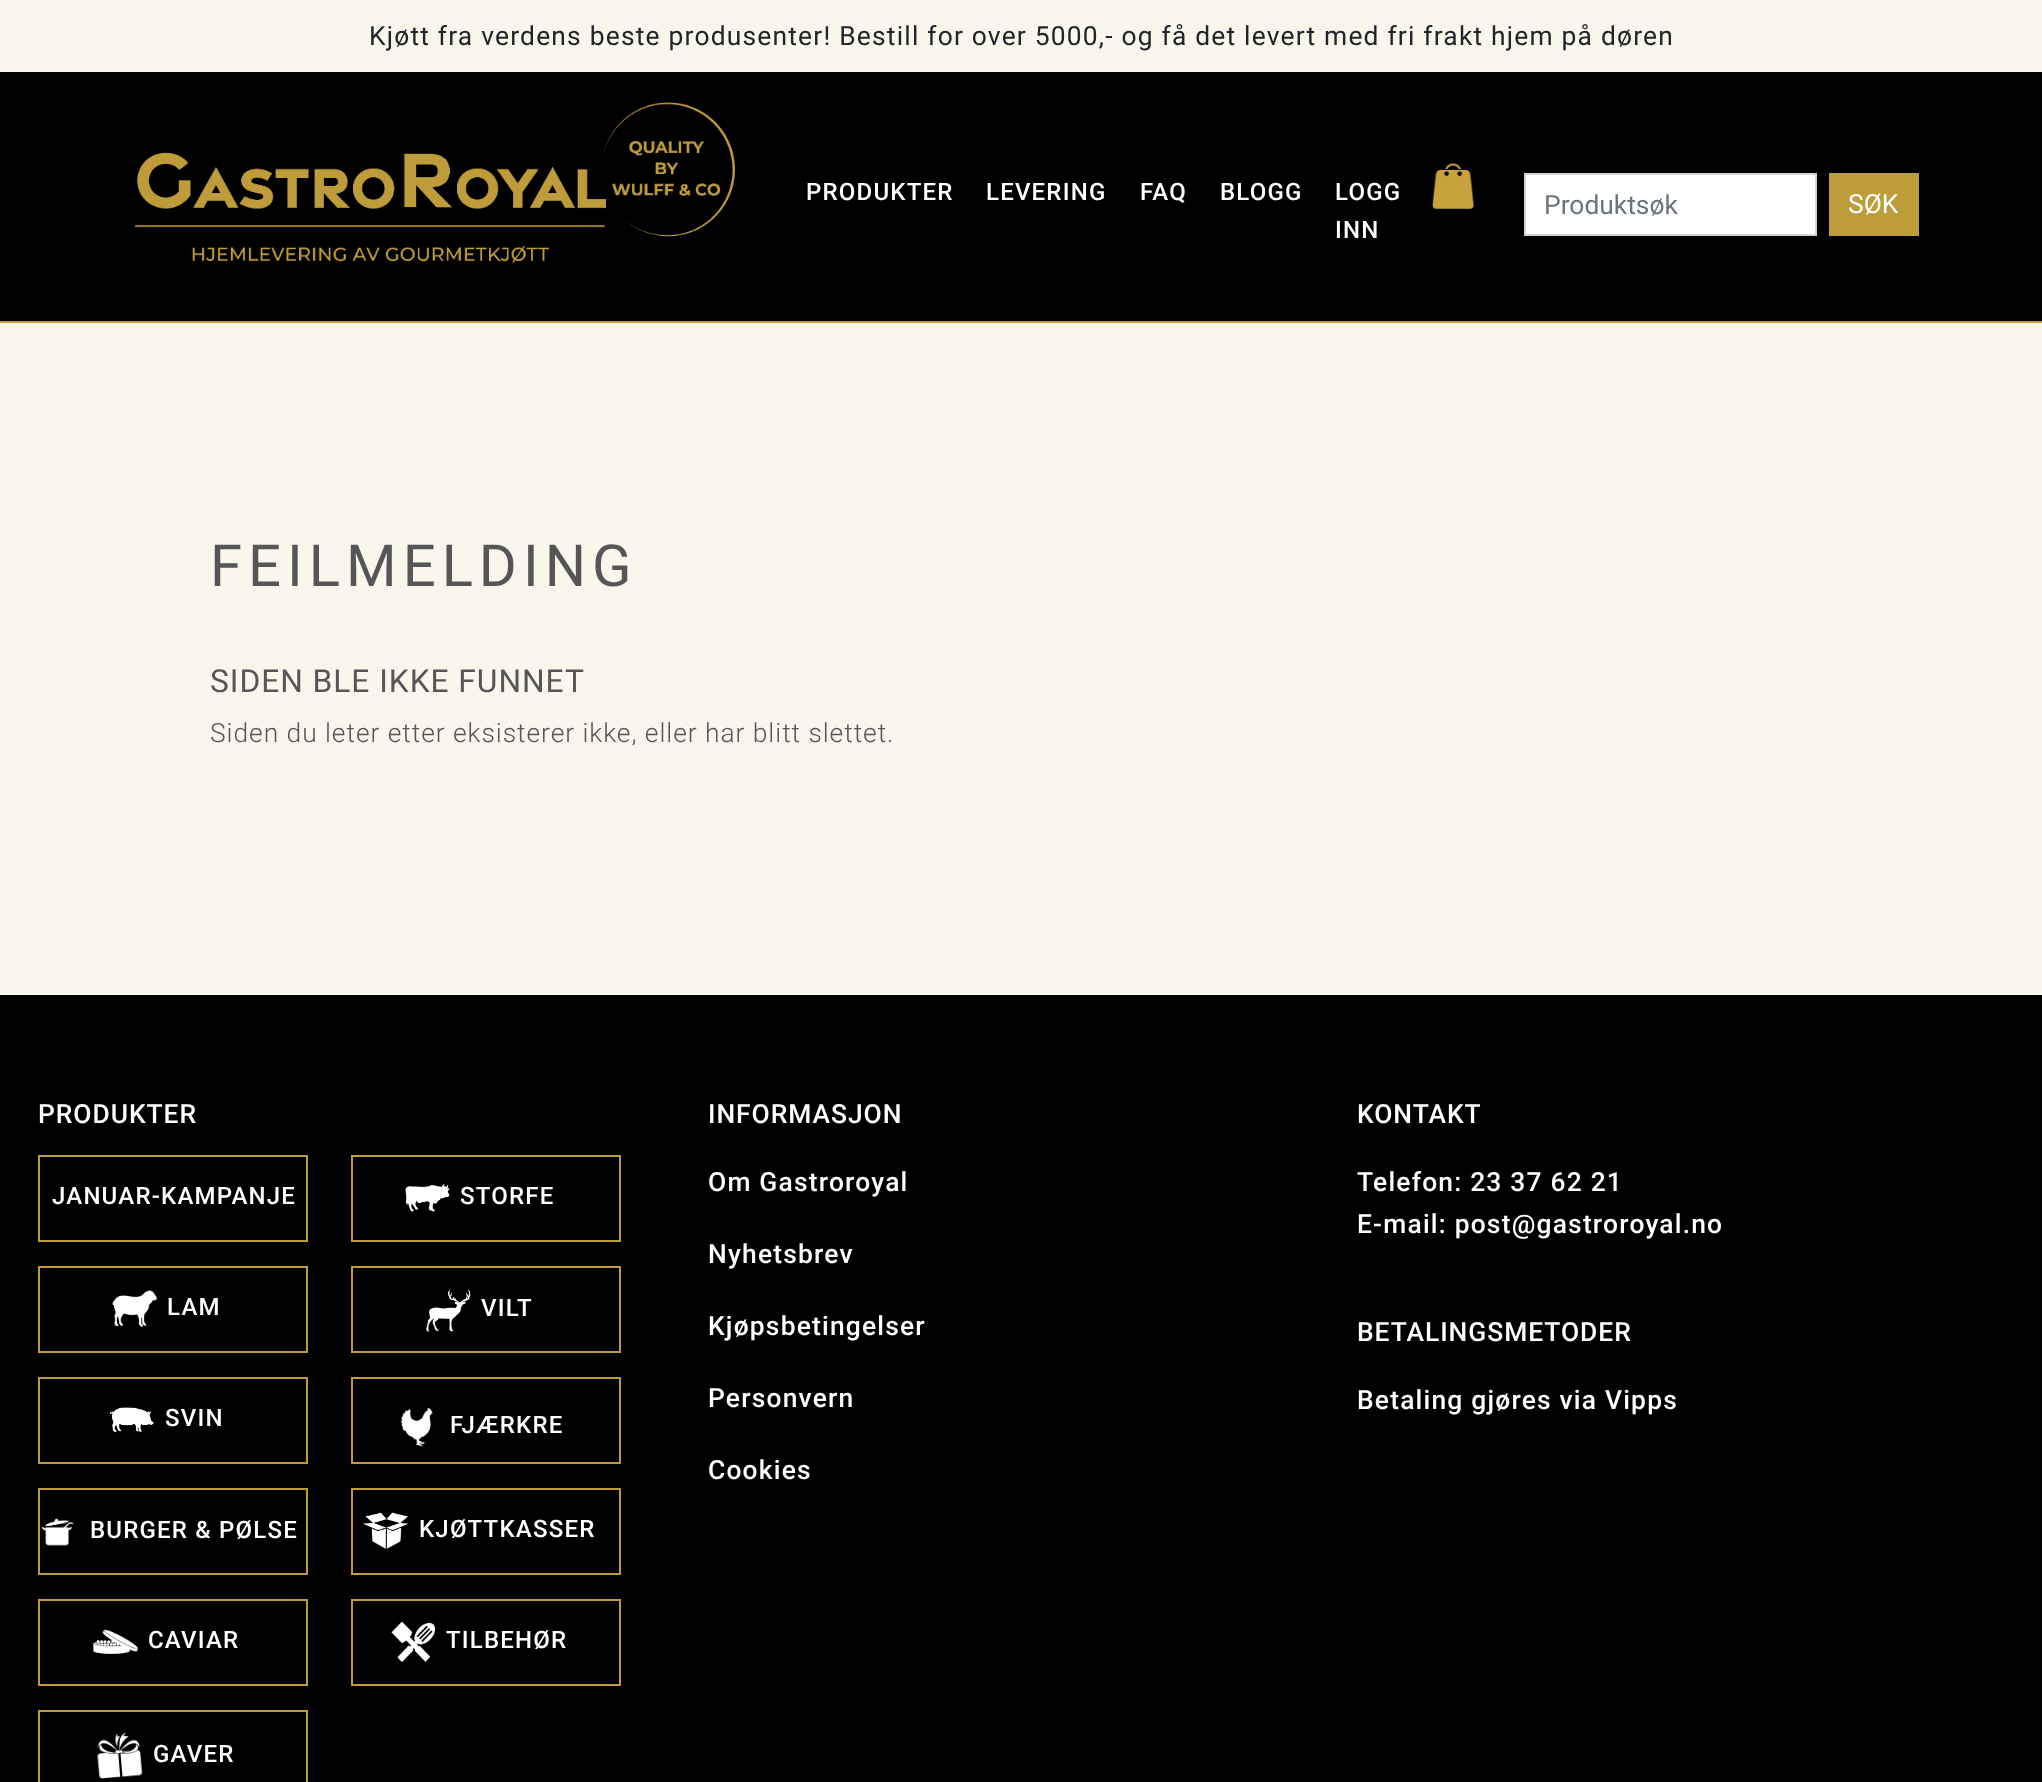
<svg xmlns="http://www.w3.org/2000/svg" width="2042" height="1782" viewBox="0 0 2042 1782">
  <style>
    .t1 { font: 26.4px Roboto; letter-spacing: 1.2px; fill: #212529; }
    .t2 { font: 500 24px Roboto; letter-spacing: 1.2px; fill: #fff; }
    .t3 { font: 26.4px Roboto; fill: #6c757d; }
    .t4 { font: 26.4px Roboto; fill: #fff; }
    .t5 { font: 58px Roboto; letter-spacing: 6px; fill: #575656; }
    .t6 { font: 31.75px Roboto; letter-spacing: 0.95px; fill: #575656; }
    .t7 { font: 300 26.4px Roboto; letter-spacing: 0.95px; fill: #575656; }
    .t8 { font: 500 26.4px Roboto; letter-spacing: 0.95px; fill: #fff; }
    .t9 { font: 500 26.4px Roboto; letter-spacing: 1.2px; fill: #fff; }
  </style>
  <rect width="100%" height="100%" fill="#000"/>
  <rect x="0" y="0" width="2042" height="72" fill="#f9f6ec"/>
  <text x="369" y="45" class="t1">Kjøtt fra verdens beste produsenter! Bestill for over 5000,- og få det levert med fri frakt hjem på døren</text>
  <rect x="0" y="321" width="2042" height="2" fill="#bf9c3a"/>
  <image x="135" y="102" width="600" height="161" href="images/1.png"/>
  <text x="806" y="200" class="t2">PRODUKTER</text>
  <text x="986" y="200" class="t2">LEVERING</text>
  <text x="1140" y="200" class="t2">FAQ</text>
  <text x="1220" y="200" class="t2">BLOGG</text>
  <text x="1335" y="200" class="t2">LOGG</text>
  <text x="1335" y="238" class="t2">INN</text>
  <image x="1432" y="163" width="43" height="47" href="images/2.png"/>
  <rect x="1525" y="174" width="291" height="61" fill="#fff" stroke="#ced4da" stroke-width="2"/>
  <text x="1544" y="214" class="t3">Produktsøk</text>
  <rect x="1829" y="173" width="90" height="63" fill="#bf9c3a"/>
  <text x="1848" y="213" class="t4">SØK</text>
  <rect x="0" y="323" width="2042" height="672" fill="#f9f6ec"/>
  <text x="210" y="586" class="t5">FEILMELDING</text>
  <text x="210" y="692" class="t6">SIDEN BLE IKKE FUNNET</text>
  <text x="210" y="742" class="t7">Siden du leter etter eksisterer ikke, eller har blitt slettet.</text>
  <text x="38" y="1123" class="t8">PRODUKTER</text>
  <rect x="39" y="1156" width="268" height="85" fill="none" stroke="#bf9c3a" stroke-width="2"/>
  <text x="52" y="1204" class="t2">JANUAR-KAMPANJE</text>
  <rect x="352" y="1156" width="268" height="85" fill="none" stroke="#bf9c3a" stroke-width="2"/>
  <image x="405" y="1183" width="45" height="29" href="images/3.png"/>
  <text x="460" y="1204" class="t2">STORFE</text>
  <rect x="39" y="1267" width="268" height="85" fill="none" stroke="#bf9c3a" stroke-width="2"/>
  <image x="112" y="1290" width="45" height="37" href="images/4.png"/>
  <text x="167" y="1315" class="t2">LAM</text>
  <rect x="352" y="1267" width="268" height="85" fill="none" stroke="#bf9c3a" stroke-width="2"/>
  <image x="426" y="1289" width="45" height="43" href="images/5.png"/>
  <text x="481" y="1316" class="t2">VILT</text>
  <rect x="39" y="1378" width="268" height="85" fill="none" stroke="#bf9c3a" stroke-width="2"/>
  <image x="109" y="1407" width="45" height="25" href="images/6.png"/>
  <text x="165" y="1426" class="t2">SVIN</text>
  <rect x="352" y="1378" width="268" height="85" fill="none" stroke="#bf9c3a" stroke-width="2"/>
  <image x="400" y="1408" width="33" height="39" href="images/7.png"/>
  <text x="450" y="1433" class="t2">FJÆRKRE</text>
  <rect x="39" y="1489" width="268" height="85" fill="none" stroke="#bf9c3a" stroke-width="2"/>
  <image x="41" y="1518" width="33" height="28" href="images/8.png"/>
  <text x="90" y="1538" class="t2">BURGER &amp; PØLSE</text>
  <rect x="352" y="1489" width="268" height="85" fill="none" stroke="#bf9c3a" stroke-width="2"/>
  <image x="363" y="1512" width="45" height="37" href="images/9.png"/>
  <text x="419" y="1537" class="t2">KJØTTKASSER</text>
  <rect x="39" y="1600" width="268" height="85" fill="none" stroke="#bf9c3a" stroke-width="2"/>
  <image x="93" y="1629" width="45" height="25" href="images/10.png"/>
  <text x="148" y="1648" class="t2">CAVIAR</text>
  <rect x="352" y="1600" width="268" height="85" fill="none" stroke="#bf9c3a" stroke-width="2"/>
  <image x="391" y="1621" width="44" height="41" href="images/11.png"/>
  <text x="446" y="1648" class="t2">TILBEHØR</text>
  <rect x="39" y="1711" width="268" height="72" fill="none" stroke="#bf9c3a" stroke-width="2"/>
  <image x="97" y="1732" width="46" height="47" href="images/12.png"/>
  <text x="153" y="1762" class="t2">GAVER</text>
  <text x="708" y="1123" class="t8">INFORMASJON</text>
  <text x="708" y="1191" class="t9">Om Gastroroyal</text>
  <text x="708" y="1263" class="t9">Nyhetsbrev</text>
  <text x="708" y="1335" class="t9">Kjøpsbetingelser</text>
  <text x="708" y="1407" class="t9">Personvern</text>
  <text x="708" y="1479" class="t9">Cookies</text>
  <text x="1357" y="1123" class="t8">KONTAKT</text>
  <text x="1357" y="1191" class="t9">Telefon: 23 37 62 21</text>
  <text x="1357" y="1233" class="t9">E-mail: post@gastroroyal.no</text>
  <text x="1357" y="1341" class="t8">BETALINGSMETODER</text>
  <text x="1357" y="1409" class="t9">Betaling gjøres via Vipps</text>
</svg>
